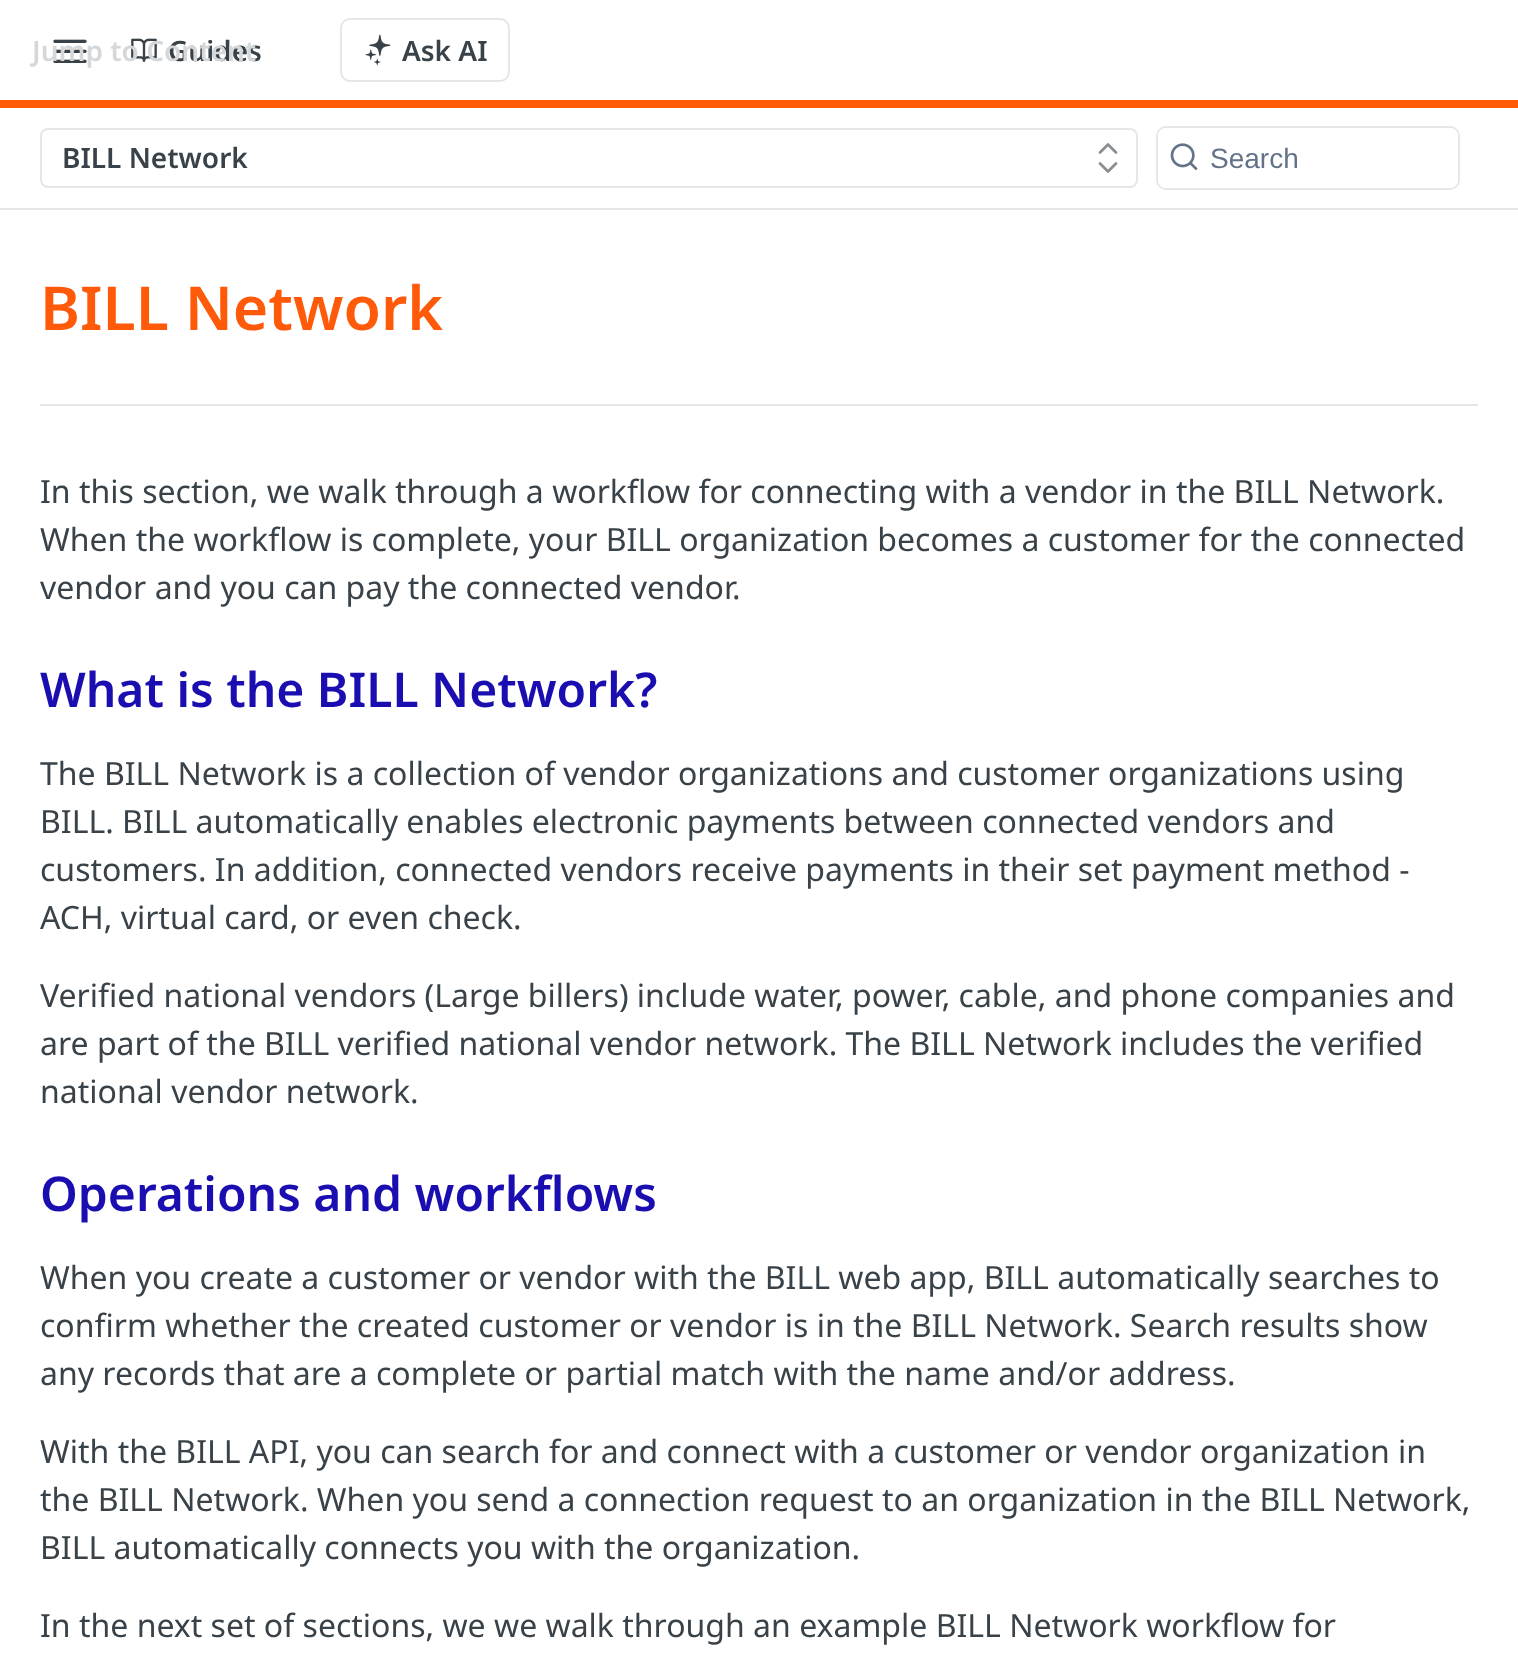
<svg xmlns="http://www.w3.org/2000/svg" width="1518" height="1661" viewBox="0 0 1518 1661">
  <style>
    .t1 { font: 600 28px Noto Sans; fill: #384248; }
    .t2 { font: 600 28px Noto Sans; fill: #d5d7d9; }
    .t3 { font: 28px Liberation Sans; fill: #637288; }
    .t4 { font: 600 60.75px Noto Sans; fill: #ff5a0a; }
    .t5 { font: 32px Noto Sans; fill: #384248; }
    .t6 { font: 600 48px Noto Sans; fill: #1b0eb1; }
  </style>
  <rect width="100%" height="100%" fill="#fff"/>
  <rect x="0" y="208" width="1518" height="2" fill="#e6e6e6"/>
  <rect x="0" y="100" width="1518" height="8" fill="#ff5a0a"/>
  <image x="53" y="39" width="34" height="24" href="images/1.png"/>
  <image x="131" y="38" width="26" height="24" href="images/2.png"/>
  <text x="168" y="61" class="t1">Guides</text>
  <rect x="341" y="19" width="168" height="62" rx="9" fill="none" stroke="#e6e6e6" stroke-width="2"/>
  <image x="365" y="34" width="26" height="32" href="images/3.png"/>
  <text x="402" y="61" class="t1">Ask AI</text>
  <text x="32" y="61" class="t2">Jump to Content</text>
  <rect x="41" y="129" width="1096" height="58" rx="7" fill="none" stroke="#e6e6e6" stroke-width="2"/>
  <text x="62" y="168" class="t1">BILL Network</text>
  <path d="M1100 163.5L1108 171.5L1116 163.5M1116 152.5L1108 144.5L1100 152.5" fill="none" stroke="#888e91" stroke-width="2.7" stroke-linecap="round" stroke-linejoin="round"/>
  <rect x="1157" y="127" width="302" height="62" rx="9" fill="none" stroke="#e6e6e6" stroke-width="2"/>
  <rect x="1158" y="128" width="300" height="60" rx="8" fill="#fff"/>
  <image x="1170" y="143" width="28" height="27" href="images/4.png"/>
  <text x="1210" y="168" class="t3">Search</text>
  <rect x="40" y="404" width="1438" height="2" fill="#e6e6e6"/>
  <text x="40" y="330" class="t4">BILL Network</text>
  <text x="40" y="503" class="t5">In this section, we walk through a workflow for connecting with a vendor in the BILL Network.</text>
  <text x="40" y="551" class="t5">When the workflow is complete, your BILL organization becomes a customer for the connected</text>
  <text x="40" y="599" class="t5">vendor and you can pay the connected vendor.</text>
  <text x="40" y="707" class="t6">What is the BILL Network?</text>
  <text x="40" y="785" class="t5">The BILL Network is a collection of vendor organizations and customer organizations using</text>
  <text x="40" y="833" class="t5">BILL. BILL automatically enables electronic payments between connected vendors and</text>
  <text x="40" y="881" class="t5">customers. In addition, connected vendors receive payments in their set payment method -</text>
  <text x="40" y="929" class="t5">ACH, virtual card, or even check.</text>
  <text x="40" y="1007" class="t5">Verified national vendors (Large billers) include water, power, cable, and phone companies and</text>
  <text x="40" y="1055" class="t5">are part of the BILL verified national vendor network. The BILL Network includes the verified</text>
  <text x="40" y="1103" class="t5">national vendor network.</text>
  <text x="40" y="1211" class="t6">Operations and workflows</text>
  <text x="40" y="1289" class="t5">When you create a customer or vendor with the BILL web app, BILL automatically searches to</text>
  <text x="40" y="1337" class="t5">confirm whether the created customer or vendor is in the BILL Network. Search results show</text>
  <text x="40" y="1385" class="t5">any records that are a complete or partial match with the name and/or address.</text>
  <text x="40" y="1463" class="t5">With the BILL API, you can search for and connect with a customer or vendor organization in</text>
  <text x="40" y="1511" class="t5">the BILL Network. When you send a connection request to an organization in the BILL Network,</text>
  <text x="40" y="1559" class="t5">BILL automatically connects you with the organization.</text>
  <text x="40" y="1637" class="t5">In the next set of sections, we we walk through an example BILL Network workflow for</text>
</svg>
